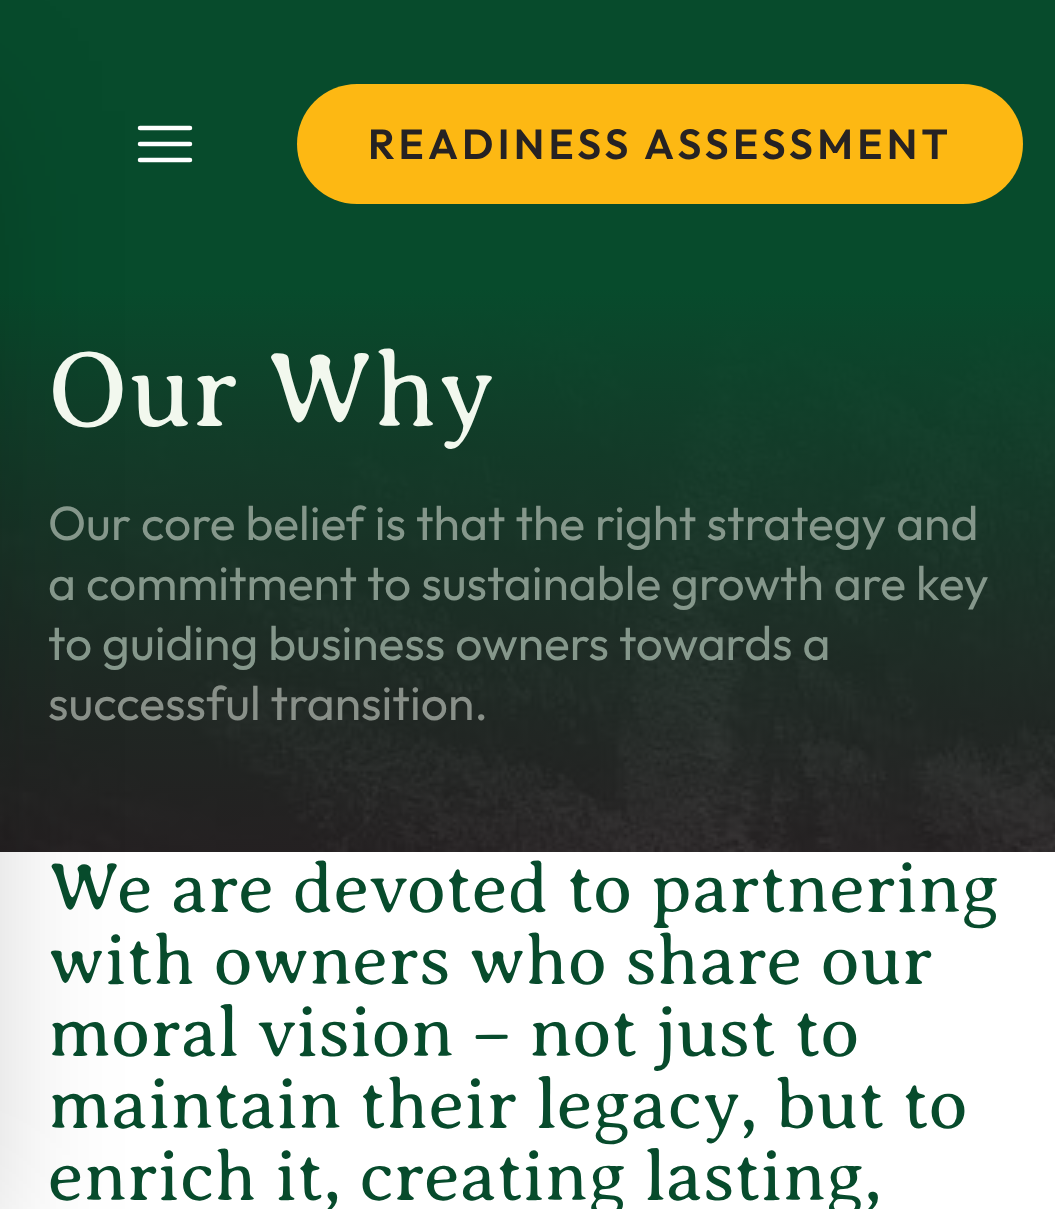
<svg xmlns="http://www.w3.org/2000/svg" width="1055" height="1209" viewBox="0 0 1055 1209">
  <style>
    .t1 { font: 600 42px Outfit; letter-spacing: 4.25px; fill: #262223; }
    .t2 { font: 300 108px Averia Serif Libre; fill: #f2f8ee; }
    .t3 { font: 48px Outfit; fill: #85978b; }
    .t4 { font: 48px Outfit; fill: #899089; }
    .t5 { font: 300 72px Averia Serif Libre; fill: #074b2c; }
  </style>
  <defs>
    <linearGradient id="g1" gradientUnits="userSpaceOnUse" x1="528" y1="288" x2="528" y2="852"><stop offset="0" stop-color="#074b2c"/><stop offset="1" stop-color="#262223" stop-opacity="0.5"/></linearGradient>
  </defs>
  <rect width="100%" height="100%" fill="#262223"/>
  <rect x="0" y="0" width="1055" height="288" fill="#074b2c"/>
  <path d="M140 128H190M140 144H190M140 160H190" fill="none" stroke="#fff" stroke-width="4.5" stroke-linecap="round" stroke-linejoin="round"/>
  <image x="0" y="295" width="1055" height="557" href="images/1.png"/>
  <rect x="0" y="288" width="1055" height="564" fill="url(#g1)"/>
  <rect x="0" y="852" width="1055" height="357" fill="#fff"/>
  <rect x="-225" y="111" width="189" height="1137" fill="#00000040" filter="blur(75px)"/>
  <rect x="297" y="84" width="726" height="120" rx="60" fill="#fdb813"/>
  <text x="368" y="159" class="t1">READINESS ASSESSMENT</text>
  <text x="48" y="426" class="t2">Our Why</text>
  <text x="48" y="540" class="t3">Our core belief is that the right strategy and</text>
  <text x="48" y="600" class="t3">a commitment to sustainable growth are key</text>
  <text x="48" y="660" class="t3">to guiding business owners towards a</text>
  <text x="48" y="720" class="t4">successful transition.</text>
  <text x="48" y="912" class="t5">We are devoted to partnering</text>
  <text x="48" y="984" class="t5">with owners who share our</text>
  <text x="48" y="1056" class="t5">moral vision – not just to</text>
  <text x="48" y="1128" class="t5">maintain their legacy, but to</text>
  <text x="48" y="1200" class="t5">enrich it, creating lasting,</text>
</svg>
